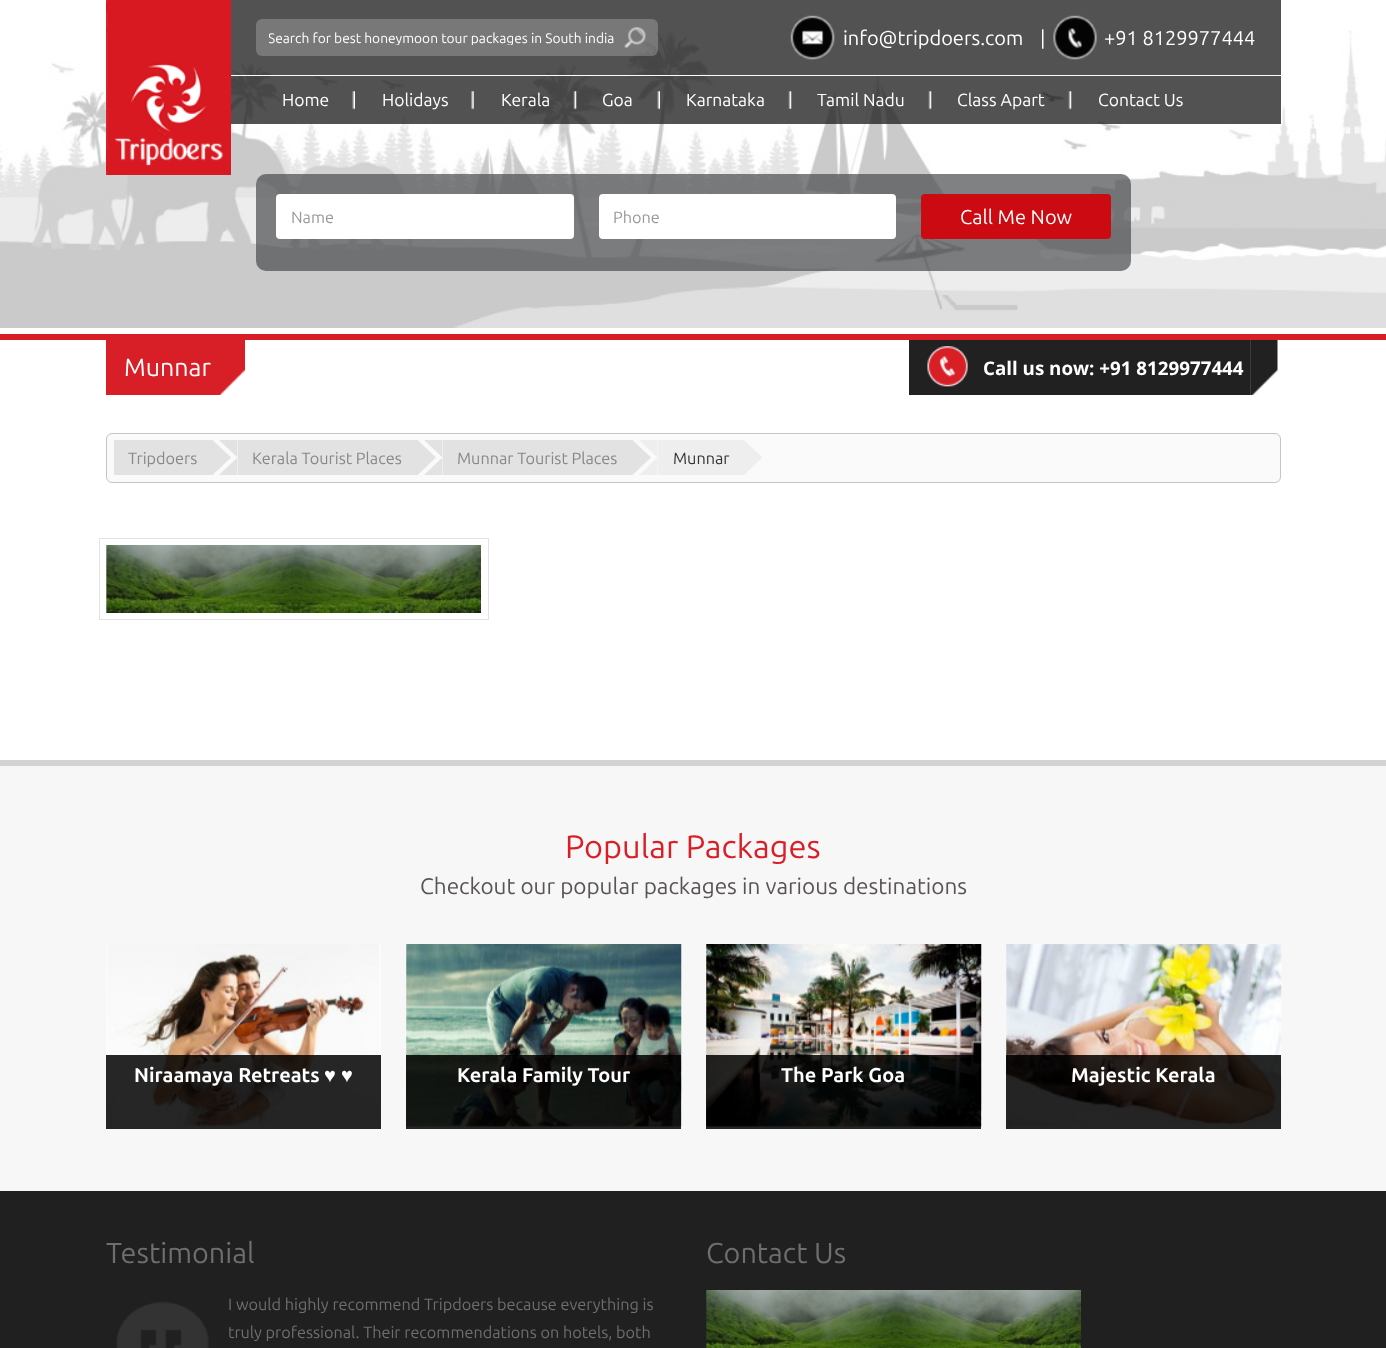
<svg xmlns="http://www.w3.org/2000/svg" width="1386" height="1348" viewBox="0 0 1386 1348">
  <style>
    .t1 { font: 13.75px Ubuntu; fill: #fff; }
    .t2 { font: 20px Ubuntu; fill: #fff; }
    .t3 { font: 17.5px Ubuntu; fill: #fff; }
    .t4 { font: 16.25px Ubuntu; fill: #999; }
    .t5 { font: 25px Ubuntu; fill: #fff; }
    .t6 { font: bold 18.75px Open Sans; fill: #fff; }
    .t7 { font: 16.25px Ubuntu; fill: #888; }
    .t8 { font: 16.25px Ubuntu; fill: #333; }
    .t9 { font: 32.5px Ubuntu; fill: #d81f27; }
    .t10 { font: 22.5px Ubuntu; fill: #595454; }
    .t11 { font: bold 20px Ubuntu; fill: #fff; }
    .t12 { font: bold 20px Liberation Serif; fill: #fff; }
    .t13 { font: 28.75px Ubuntu; fill: #6e6e71; }
    .t14 { font: 16.25px Ubuntu; fill: #6e6e71; }
  </style>
  <defs>
    <clipPath id="clip1"><rect x="269" y="30" width="345" height="15"/></clipPath>
  </defs>
  <rect width="100%" height="100%" fill="#fff"/>
  <image x="0" y="30" width="1386" height="298" href="images/11.png"/>
  <rect x="231" y="0" width="1050" height="124" fill="#212121c7"/>
  <rect x="106" y="0" width="1" height="175" fill="#d81f27"/>
  <image x="106" y="0" width="125" height="175" href="images/1.png"/>
  <rect x="256" y="19" width="402" height="37" rx="6" fill="#ffffff38"/>
  <g clip-path="url(#clip1)">
    <text x="268" y="43" class="t1">Search for best honeymoon tour packages in South india</text>
  </g>
  <image x="624" y="27" width="22" height="22" href="images/2.png"/>
  <image x="790" y="15" width="45" height="45" href="images/3.png"/>
  <text x="843" y="45" class="t2">info@tripdoers.com</text>
  <text x="1040" y="45" class="t2">|</text>
  <image x="1053" y="15" width="44" height="45" href="images/4.png"/>
  <text x="1104" y="45" class="t2">+91 8129977444</text>
  <rect x="231" y="75" width="1050" height="1" fill="#fdfdfc"/>
  <image x="352" y="91" width="3" height="19" href="images/5.png"/>
  <text x="282" y="106" class="t3">Home</text>
  <image x="471" y="91" width="3" height="19" href="images/6.png"/>
  <text x="382" y="106" class="t3">Holidays</text>
  <image x="573" y="91" width="4" height="19" href="images/7.png"/>
  <text x="501" y="106" class="t3">Kerala</text>
  <image x="657" y="91" width="3" height="19" href="images/8.png"/>
  <text x="602" y="106" class="t3">Goa</text>
  <image x="788" y="91" width="4" height="18" href="images/9.png"/>
  <text x="686" y="106" class="t3">Karnataka</text>
  <image x="928" y="91" width="4" height="19" href="images/10.png"/>
  <text x="817" y="106" class="t3">Tamil Nadu</text>
  <image x="1068" y="91" width="4" height="19" href="images/10.png"/>
  <text x="957" y="106" class="t3">Class Apart</text>
  <text x="1098" y="106" class="t3">Contact Us</text>
  <rect x="256" y="174" width="875" height="97" rx="10" fill="#494c4db3"/>
  <rect x="276" y="194" width="298" height="45" rx="4" fill="#fff"/>
  <text x="291" y="223" class="t4">Name</text>
  <rect x="599" y="194" width="297" height="45" rx="4" fill="#fff"/>
  <text x="613" y="223" class="t4">Phone</text>
  <rect x="921" y="194" width="190" height="45" rx="4" fill="#cc0a12"/>
  <text x="960" y="224" class="t2">Call Me Now</text>
  <rect x="0" y="334" width="1386" height="6" fill="#d81f27"/>
  <rect x="106" y="340" width="112" height="55" fill="#d81f27"/>
  <text x="124" y="376" class="t5">Munnar</text>
  <image x="218" y="340" width="27" height="55" href="images/12.png"/>
  <rect x="909" y="340" width="341" height="55" fill="#212121"/>
  <image x="927" y="346" width="41" height="41" href="images/13.png"/>
  <text x="983" y="375" class="t6">Call us now: +91 8129977444</text>
  <image x="1250" y="340" width="28" height="55" href="images/14.png"/>
  <rect x="106.5" y="433.5" width="1174" height="49" rx="5.5" fill="#fafafa" stroke="#c5c5c5"/>
  <rect x="114" y="440" width="99" height="35" fill="#e2e2e2"/>
  <text x="128" y="464" class="t7">Tripdoers</text>
  <path d="M212.5 475V440L231 457.5Z" fill="#e2e2e2"/>
  <rect x="238" y="440" width="180" height="35" fill="#e2e2e2"/>
  <path d="M219 440H237.5V457.5Z" fill="#e2e2e2"/>
  <path d="M237.5 475H219L237.5 457.5Z" fill="#e2e2e2"/>
  <text x="252" y="464" class="t7">Kerala Tourist Places</text>
  <path d="M417.5 475V440L436 457.5Z" fill="#e2e2e2"/>
  <rect x="443" y="440" width="190" height="35" fill="#e2e2e2"/>
  <path d="M424 440H442.5V457.5Z" fill="#e2e2e2"/>
  <path d="M442.5 475H424L442.5 457.5Z" fill="#e2e2e2"/>
  <text x="457" y="464" class="t7">Munnar Tourist Places</text>
  <path d="M632.5 475V440L651 457.5Z" fill="#e2e2e2"/>
  <rect x="658" y="440" width="86" height="35" fill="#eee"/>
  <path d="M639 440H657.5V457.5Z" fill="#eee"/>
  <path d="M657.5 475H639L657.5 457.5Z" fill="#eee"/>
  <text x="673" y="464" class="t8">Munnar</text>
  <path d="M744 475V440L762.5 457.5Z" fill="#eee"/>
  <image x="106" y="545" width="375" height="68" href="images/15.png"/>
  <rect x="99.5" y="538.5" width="389" height="81" fill="none" stroke="#e3e3e3"/>
  <rect x="0" y="766" width="1386" height="425" fill="#f7f7f7"/>
  <rect x="0" y="760" width="1386" height="6" fill="#d3d3d3"/>
  <text x="565" y="858" class="t9">Popular Packages</text>
  <text x="420" y="894" class="t10">Checkout our popular packages in various destinations</text>
  <image x="106" y="944" width="275" height="183" href="images/16.png"/>
  <rect x="106" y="1055" width="275" height="74" fill="#000000d9"/>
  <text x="134" y="1082" class="t11">Niraamaya Retreats</text>
  <text x="324" y="1082" class="t12">♥ ♥</text>
  <image x="406" y="944" width="276" height="183" href="images/17.png"/>
  <rect x="406" y="1055" width="275" height="74" fill="#000000d9"/>
  <text x="457" y="1082" class="t11">Kerala Family Tour</text>
  <image x="706" y="944" width="276" height="183" href="images/18.png"/>
  <rect x="706" y="1055" width="275" height="74" fill="#000000d9"/>
  <text x="781" y="1082" class="t11">The Park Goa</text>
  <image x="1006" y="944" width="276" height="183" href="images/19.png"/>
  <rect x="1006" y="1055" width="275" height="74" fill="#000000d9"/>
  <text x="1071" y="1082" class="t11">Majestic Kerala</text>
  <rect x="0" y="1191" width="1386" height="157" fill="#202020"/>
  <text x="106" y="1263" class="t13">Testimonial</text>
  <image x="116" y="1301" width="93" height="47" href="images/20.png"/>
  <text x="228" y="1310" class="t14">I would highly recommend Tripdoers because everything is</text>
  <text x="228" y="1338" class="t14">truly professional. Their recommendations on hotels, both</text>
  <text x="706" y="1263" class="t13">Contact Us</text>
  <image x="706" y="1290" width="375" height="58" href="images/21.png"/>
</svg>
